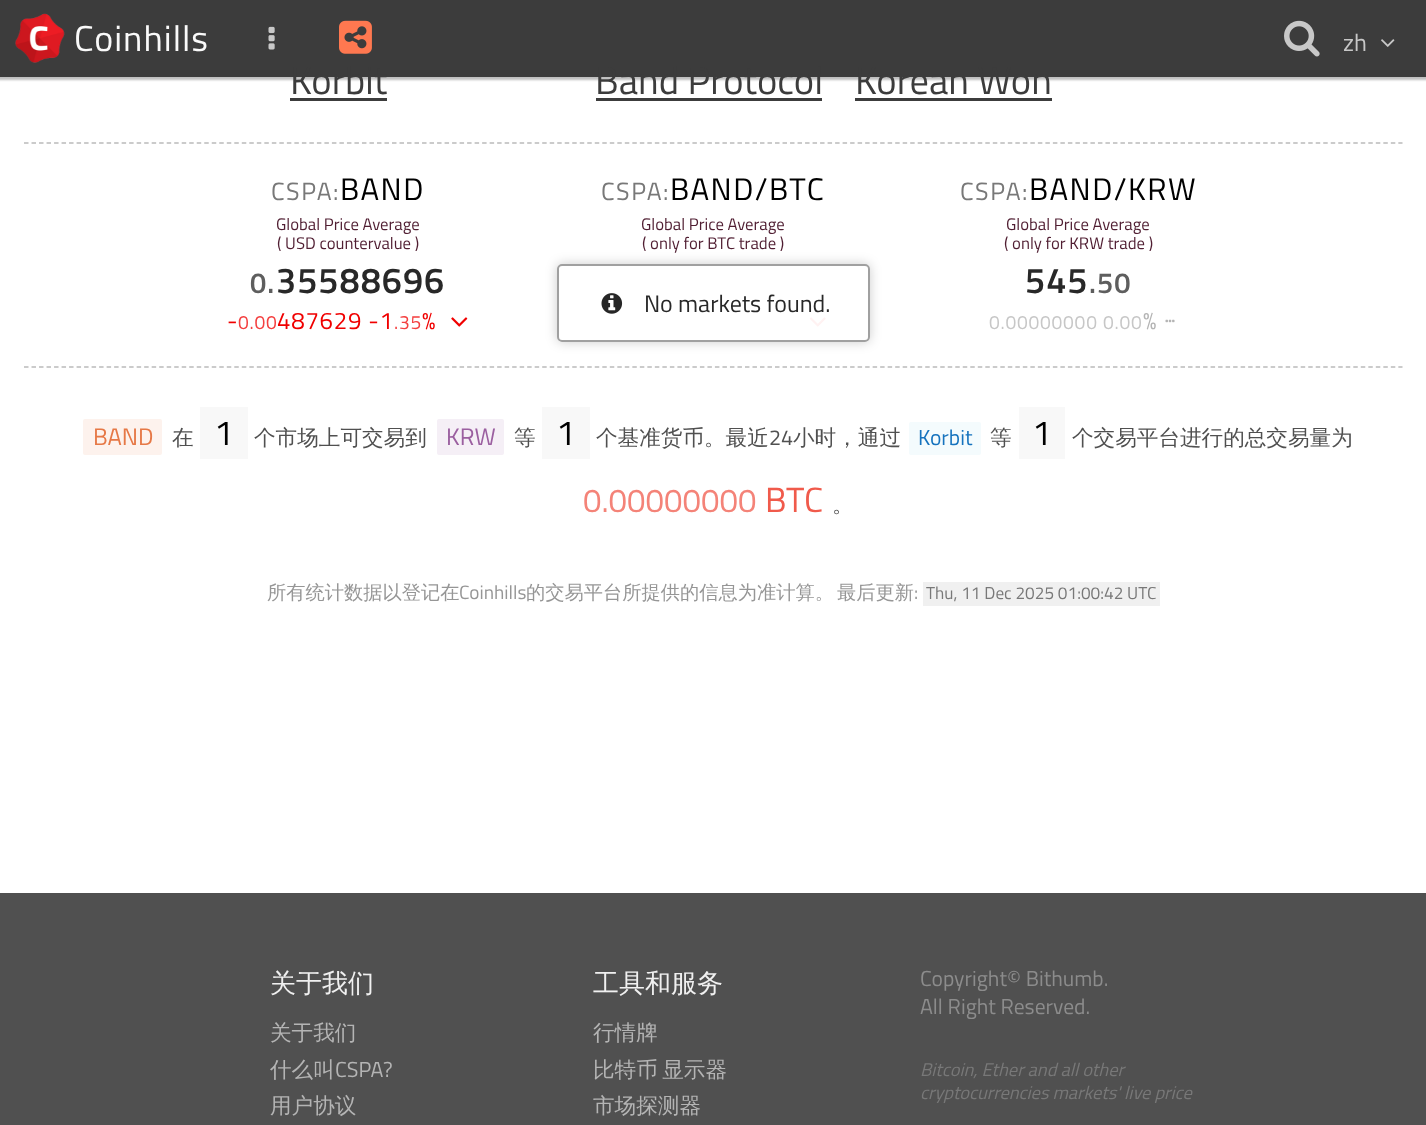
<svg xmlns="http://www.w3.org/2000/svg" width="1426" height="1125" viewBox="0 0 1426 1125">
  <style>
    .t1 { font: 36px Titillium Web; letter-spacing: 1px; fill: #fafafa; }
    .t2 { font: 24px Titillium Web; fill: #c7c7c7; }
    .t3 { font: 38.5px Titillium Web; fill: #3c3c3c; }
    .t4 { font: 25px Titillium Web; letter-spacing: 1.5px; fill: #787878; }
    .t5 { font: 31.25px Titillium Web; letter-spacing: 1.5px; fill: #000; }
    .t6 { font: 16.75px Titillium Web; fill: #501e32; }
    .t7 { font: 600 29px Titillium Web; letter-spacing: 1px; fill: #5e5e5e; }
    .t8 { font: 600 36px Titillium Web; letter-spacing: 1px; fill: #282828; }
    .t9 { font: 24px Titillium Web; letter-spacing: 0.75px; fill: #f00000; }
    .t10 { font: 19.25px Titillium Web; letter-spacing: 0.75px; fill: #f44040; }
    .t11 { font: 19.25px Titillium Web; letter-spacing: 0.75px; fill: #c7c7c7; }
    .t12 { font: 24px Titillium Web; letter-spacing: 0.75px; fill: #b4b4b4; }
    .t13 { font: 24px Titillium Web; fill: #e67846; }
    .t14 { font: 500 21.6px WenQuanYi Zen Hei; fill: #505050; }
    .t15 { font: 35px Titillium Web; fill: #000; }
    .t16 { font: 24px Titillium Web; fill: #9b5fa0; }
    .t17 { font: 21.6px Titillium Web; fill: #505050; }
    .t18 { font: 21.6px Titillium Web; fill: #1673be; }
    .t19 { font: 33px Titillium Web; fill: #f48378; }
    .t20 { font: 35px Titillium Web; fill: #f05a4b; }
    .t21 { font: 500 19.25px WenQuanYi Zen Hei; fill: #969696; }
    .t22 { font: 19.25px Titillium Web; fill: #969696; }
    .t23 { font: 17.25px Titillium Web; fill: #787878; }
    .t24 { font: 24px Titillium Web; fill: #282828; }
    .t25 { font: 500 26px WenQuanYi Zen Hei; fill: #f0f0f0; }
    .t26 { font: 500 21.6px WenQuanYi Zen Hei; fill: #b4b4b4; }
    .t27 { font: 21.6px Titillium Web; fill: #b4b4b4; }
    .t28 { font: 21.6px Titillium Web; fill: #8c8c8c; }
    .t29 { font: italic 18.4px Titillium Web; fill: #787878; }
  </style>
  <defs>
    <clipPath id="clip1"><path d="M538 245H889V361H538ZM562 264H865C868 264 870 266 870 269V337C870 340 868 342 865 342H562C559 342 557 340 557 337V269C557 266 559 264 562 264Z" clip-rule="evenodd"/></clipPath>
  </defs>
  <rect width="100%" height="100%" fill="#fff"/>
  <rect x="-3" y="-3" width="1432" height="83" fill="#00000040" filter="blur(1px)"/>
  <rect x="0" y="0" width="1426" height="77" fill="#3c3c3c"/>
  <image x="15" y="13" width="50" height="50" href="images/1.png"/>
  <text x="74" y="51" class="t1">Coinhills</text>
  <image x="268" y="26" width="7" height="24" href="images/2.png"/>
  <image x="339" y="20" width="33" height="34" href="images/3.png"/>
  <image x="1284" y="20" width="36" height="37" href="images/4.png"/>
  <text x="1343" y="51" class="t2">zh</text>
  <image x="1381" y="39" width="14" height="8" href="images/5.png"/>
  <text x="290" y="94" class="t3">Korbit</text>
  <rect x="290" y="98" width="97" height="3" fill="#3c3c3c"/>
  <text x="595" y="94" class="t3">Band Protocol</text>
  <rect x="596" y="98" width="226" height="3" fill="#3c3c3c"/>
  <text x="855" y="94" class="t3">Korean Won</text>
  <rect x="855" y="98" width="197" height="3" fill="#3c3c3c"/>
  <path d="M24 143H1402.5" fill="none" stroke="#bbb" stroke-width="1.5" stroke-dasharray="4.5 3.01"/>
  <path d="M24 367H1402.5" fill="none" stroke="#bbb" stroke-width="1.5" stroke-dasharray="4.5 3.01"/>
  <text x="271" y="200" class="t4">CSPA:</text>
  <text x="340" y="200" class="t5">BAND</text>
  <text x="276" y="230" class="t6">Global Price Average</text>
  <text x="277" y="249" class="t6">( USD countervalue )</text>
  <text x="250" y="293" class="t7">0.</text>
  <text x="276" y="293" class="t8">35588696</text>
  <text x="227" y="329" class="t9">-</text>
  <text x="238" y="329" class="t10">0.00</text>
  <text x="277" y="329" class="t9">487629 -1</text>
  <text x="394" y="329" class="t10">.35</text>
  <text x="422" y="329" class="t9">%</text>
  <image x="451" y="317" width="17" height="10" href="images/6.png"/>
  <text x="601" y="200" class="t4">CSPA:</text>
  <text x="670" y="200" class="t5">BAND/BTC</text>
  <text x="641" y="230" class="t6">Global Price Average</text>
  <text x="642" y="249" class="t6">( only for BTC trade )</text>
  <image x="809" y="317" width="17" height="10" href="images/7.png"/>
  <text x="960" y="200" class="t4">CSPA:</text>
  <text x="1029" y="200" class="t5">BAND/KRW</text>
  <text x="1006" y="230" class="t6">Global Price Average</text>
  <text x="1004" y="249" class="t6">( only for KRW trade )</text>
  <text x="1025" y="293" class="t8">545</text>
  <text x="1089" y="293" class="t7">.50</text>
  <text x="989" y="329" class="t11">0.00000000</text>
  <text x="1103" y="329" class="t11">0.00</text>
  <text x="1143" y="329" class="t12">%</text>
  <image x="1165" y="319" width="10" height="4" href="images/8.png"/>
  <rect x="83" y="419" width="79" height="36" rx="2" fill="#fdf2ed"/>
  <text x="93" y="445" class="t13">BAND</text>
  <text x="172" y="445" class="t14">在</text>
  <rect x="200" y="407" width="48" height="52" fill="#f8f8f8"/>
  <text x="214" y="445" class="t15">1</text>
  <text x="254" y="445" class="t14">个市场上可交易到</text>
  <rect x="437" y="419" width="67" height="36" rx="2" fill="#f5eff6"/>
  <text x="446" y="445" class="t16">KRW</text>
  <text x="514" y="445" class="t14">等</text>
  <rect x="542" y="407" width="48" height="52" fill="#f8f8f8"/>
  <text x="556" y="445" class="t15">1</text>
  <text x="596" y="445" class="t14">个基准货币。最近</text>
  <text x="769" y="445" class="t17">24</text>
  <text x="793" y="445" class="t14">小时，通过</text>
  <rect x="909" y="422" width="72" height="33" rx="2" fill="#f4fbfd"/>
  <text x="918" y="445" class="t18">Korbit</text>
  <text x="990" y="445" class="t14">等</text>
  <rect x="1019" y="407" width="46" height="52" fill="#f8f8f8"/>
  <text x="1032" y="445" class="t15">1</text>
  <text x="1072" y="445" class="t14">个交易平台进行的总交易量为</text>
  <text x="583" y="512" class="t19">0.00000000</text>
  <text x="765" y="512" class="t20">BTC</text>
  <text x="832" y="512" class="t14">。</text>
  <text x="267" y="599" class="t21">所有统计数据以登记在</text>
  <text x="459" y="599" class="t22">Coinhills</text>
  <text x="526" y="599" class="t21">的交易平台所提供的信息为准计算。</text>
  <text x="837" y="599" class="t21">最后更新</text>
  <text x="914" y="599" class="t22">:</text>
  <rect x="923" y="582" width="237" height="24" fill="#f0f0f0"/>
  <text x="926" y="599" class="t23">Thu, 11 Dec 2025 01:00:42 UTC</text>
  <g clip-path="url(#clip1)">
    <rect x="557" y="264" width="313" height="78" rx="5" fill="#00000033" filter="blur(6px)"/>
  </g>
  <rect x="558" y="265" width="311" height="76" rx="4" fill="#fffffff2" stroke="#a0a0a0" stroke-width="2"/>
  <image x="601" y="293" width="22" height="21" href="images/9.png"/>
  <text x="644" y="312" class="t24">No markets found.</text>
  <rect x="0" y="893" width="1426" height="232" fill="#505050"/>
  <text x="270" y="992" class="t25">关于我们</text>
  <text x="270" y="1040" class="t26">关于我们</text>
  <text x="270" y="1077" class="t26">什么叫</text>
  <text x="335" y="1077" class="t27">CSPA?</text>
  <text x="270" y="1113" class="t26">用户协议</text>
  <text x="593" y="992" class="t25">工具和服务</text>
  <text x="593" y="1040" class="t26">行情牌</text>
  <text x="593" y="1077" word-spacing="-2" class="t26">比特币 显示器</text>
  <text x="593" y="1113" class="t26">市场探测器</text>
  <text x="920" y="986" class="t28">Copyright© Bithumb.</text>
  <text x="920" y="1014" class="t28">All Right Reserved.</text>
  <text x="920" y="1076" class="t29">Bitcoin, Ether and all other</text>
  <text x="920" y="1099" class="t29">cryptocurrencies markets' live price</text>
</svg>
